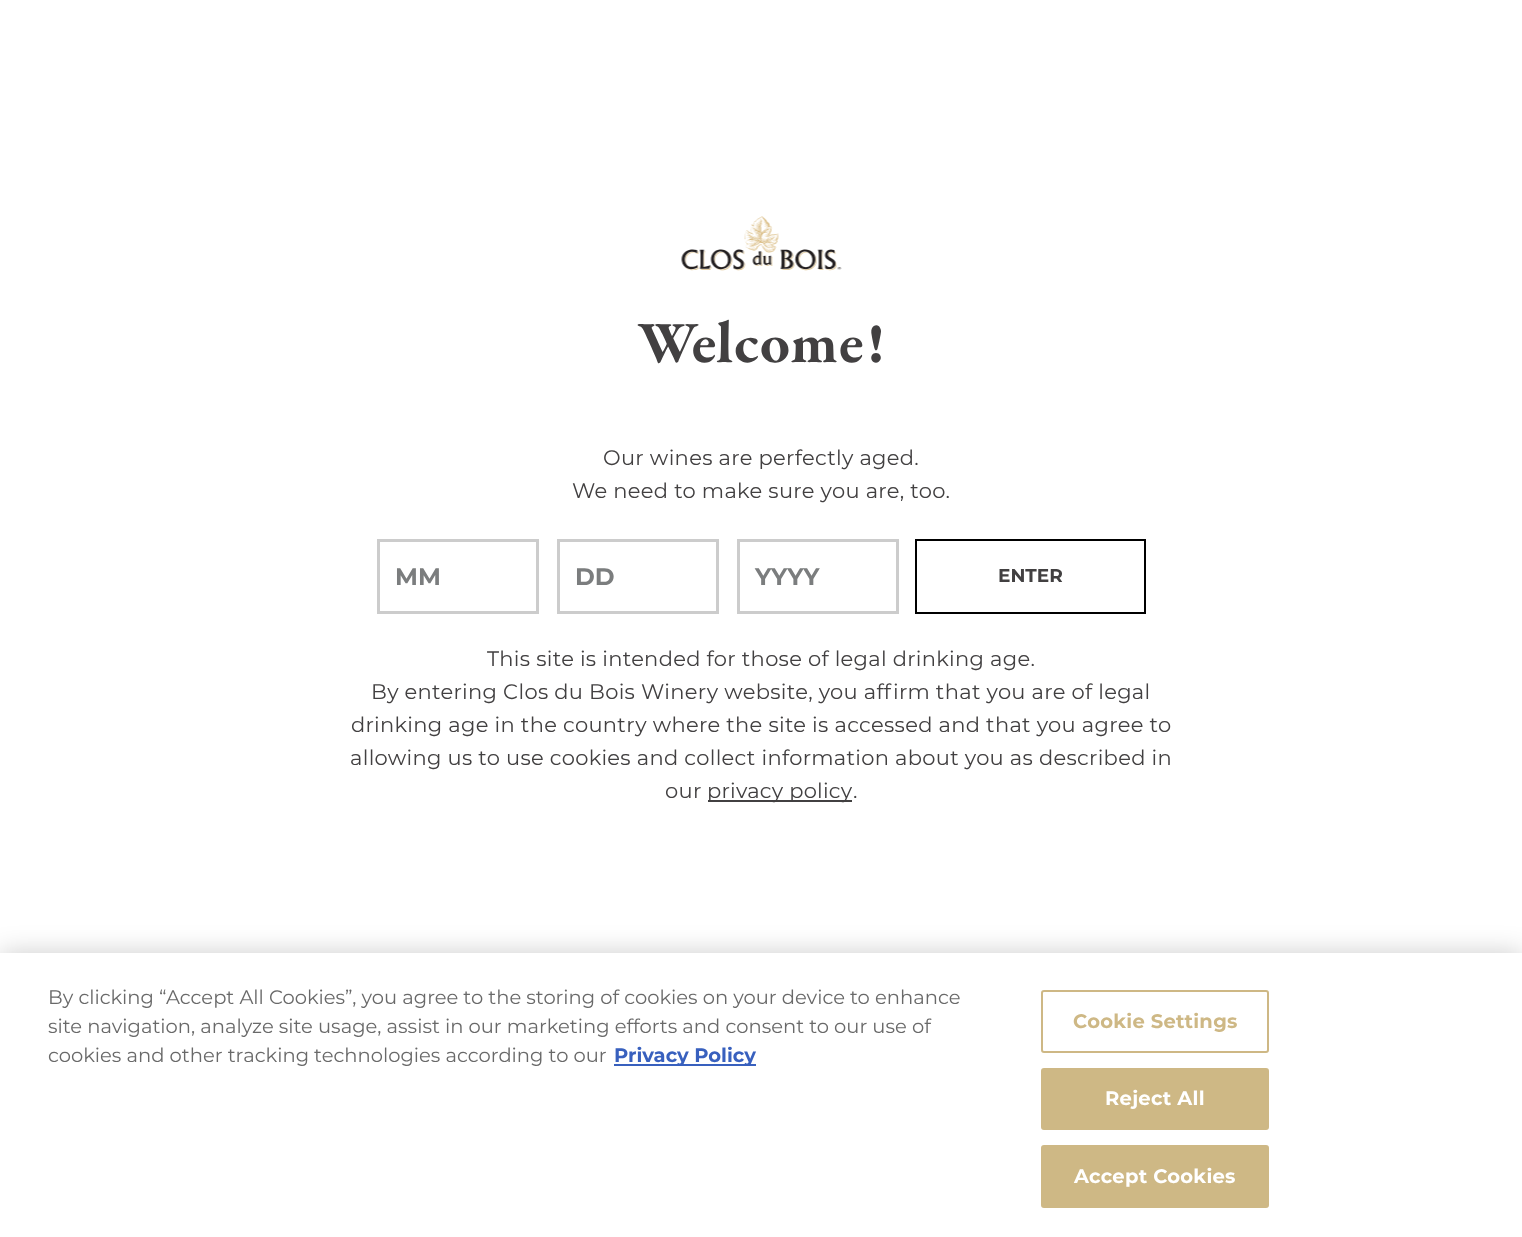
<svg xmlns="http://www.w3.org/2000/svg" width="1522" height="1237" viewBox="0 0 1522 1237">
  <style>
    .t1 { font: bold 60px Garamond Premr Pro; letter-spacing: 0.75px; fill: #424041; }
    .t2 { font: 21px Montserrat; letter-spacing: 0.3px; fill: #424041; }
    .t3 { font: bold 24px Montserrat; fill: #7b7d7e; }
    .t4 { font: bold 18.5px Montserrat; fill: #424041; }
    .t5 { font: 21px Montserrat; letter-spacing: 0.25px; fill: #424041; }
    .t6 { font: 19.5px Montserrat; fill: #696969; }
    .t7 { font: bold 19.5px Montserrat; fill: #3860be; }
    .t8 { font: bold 19.5px Montserrat; letter-spacing: 0.25px; fill: #ceb885; }
    .t9 { font: bold 19.5px Montserrat; letter-spacing: 0.25px; fill: #fff; }
  </style>
  <rect width="100%" height="100%" fill="#fff"/>
  <image x="681" y="216" width="161" height="55" href="images/1.png"/>
  <text x="638" y="362" class="t1">Welcome!</text>
  <text x="603" y="465" class="t2">Our wines are perfectly aged.</text>
  <text x="572" y="498" class="t2">We need to make sure you are, too.</text>
  <rect x="378.5" y="540.5" width="159" height="72" fill="none" stroke="#ccc" stroke-width="3"/>
  <text x="395" y="585" class="t3">MM</text>
  <rect x="558.5" y="540.5" width="159" height="72" fill="none" stroke="#ccc" stroke-width="3"/>
  <text x="575" y="585" class="t3">DD</text>
  <rect x="738.5" y="540.5" width="159" height="72" fill="none" stroke="#ccc" stroke-width="3"/>
  <text x="755" y="585" class="t3">YYYY</text>
  <rect x="916" y="540" width="229" height="73" fill="none" stroke="#000" stroke-width="2"/>
  <text x="998" y="582" class="t4">ENTER</text>
  <text x="487" y="666" class="t2">This site is intended for those of legal drinking age.</text>
  <text x="371" y="699" class="t2">By entering Clos du Bois Winery website, you affirm that you are of legal</text>
  <text x="351" y="732" class="t2">drinking age in the country where the site is accessed and that you agree to</text>
  <text x="350" y="765" class="t2">allowing us to use cookies and collect information about you as described in</text>
  <text x="665" y="798" class="t2">our</text>
  <rect x="708" y="800" width="144" height="2" fill="#424041"/>
  <text x="707" y="798" class="t5">privacy policy</text>
  <text x="853" y="798" class="t2">.</text>
  <rect x="0" y="953" width="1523" height="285" fill="#00000033" filter="blur(13.5px)"/>
  <rect x="0" y="953" width="1522" height="284" fill="#fff"/>
  <text x="48" y="1004" class="t6">By clicking “Accept All Cookies”, you agree to the storing of cookies on your device to enhance</text>
  <text x="48" y="1033" class="t6">site navigation, analyze site usage, assist in our marketing efforts and consent to our use of</text>
  <text x="48" y="1062" class="t6">cookies and other tracking technologies according to our</text>
  <rect x="614" y="1064" width="142" height="2" fill="#3860be"/>
  <text x="614" y="1062" class="t7">Privacy Policy</text>
  <rect x="1042" y="991" width="226" height="61" rx="2" fill="none" stroke="#ceb885" stroke-width="2"/>
  <text x="1073" y="1028" class="t8">Cookie Settings</text>
  <rect x="1042" y="1069" width="226" height="60" rx="2" fill="#ceb885" stroke="#ceb885" stroke-width="2"/>
  <text x="1105" y="1105" class="t9">Reject All</text>
  <rect x="1042" y="1146" width="226" height="61" rx="2" fill="#ceb885" stroke="#ceb885" stroke-width="2"/>
  <text x="1074" y="1183" class="t9">Accept Cookies</text>
</svg>
